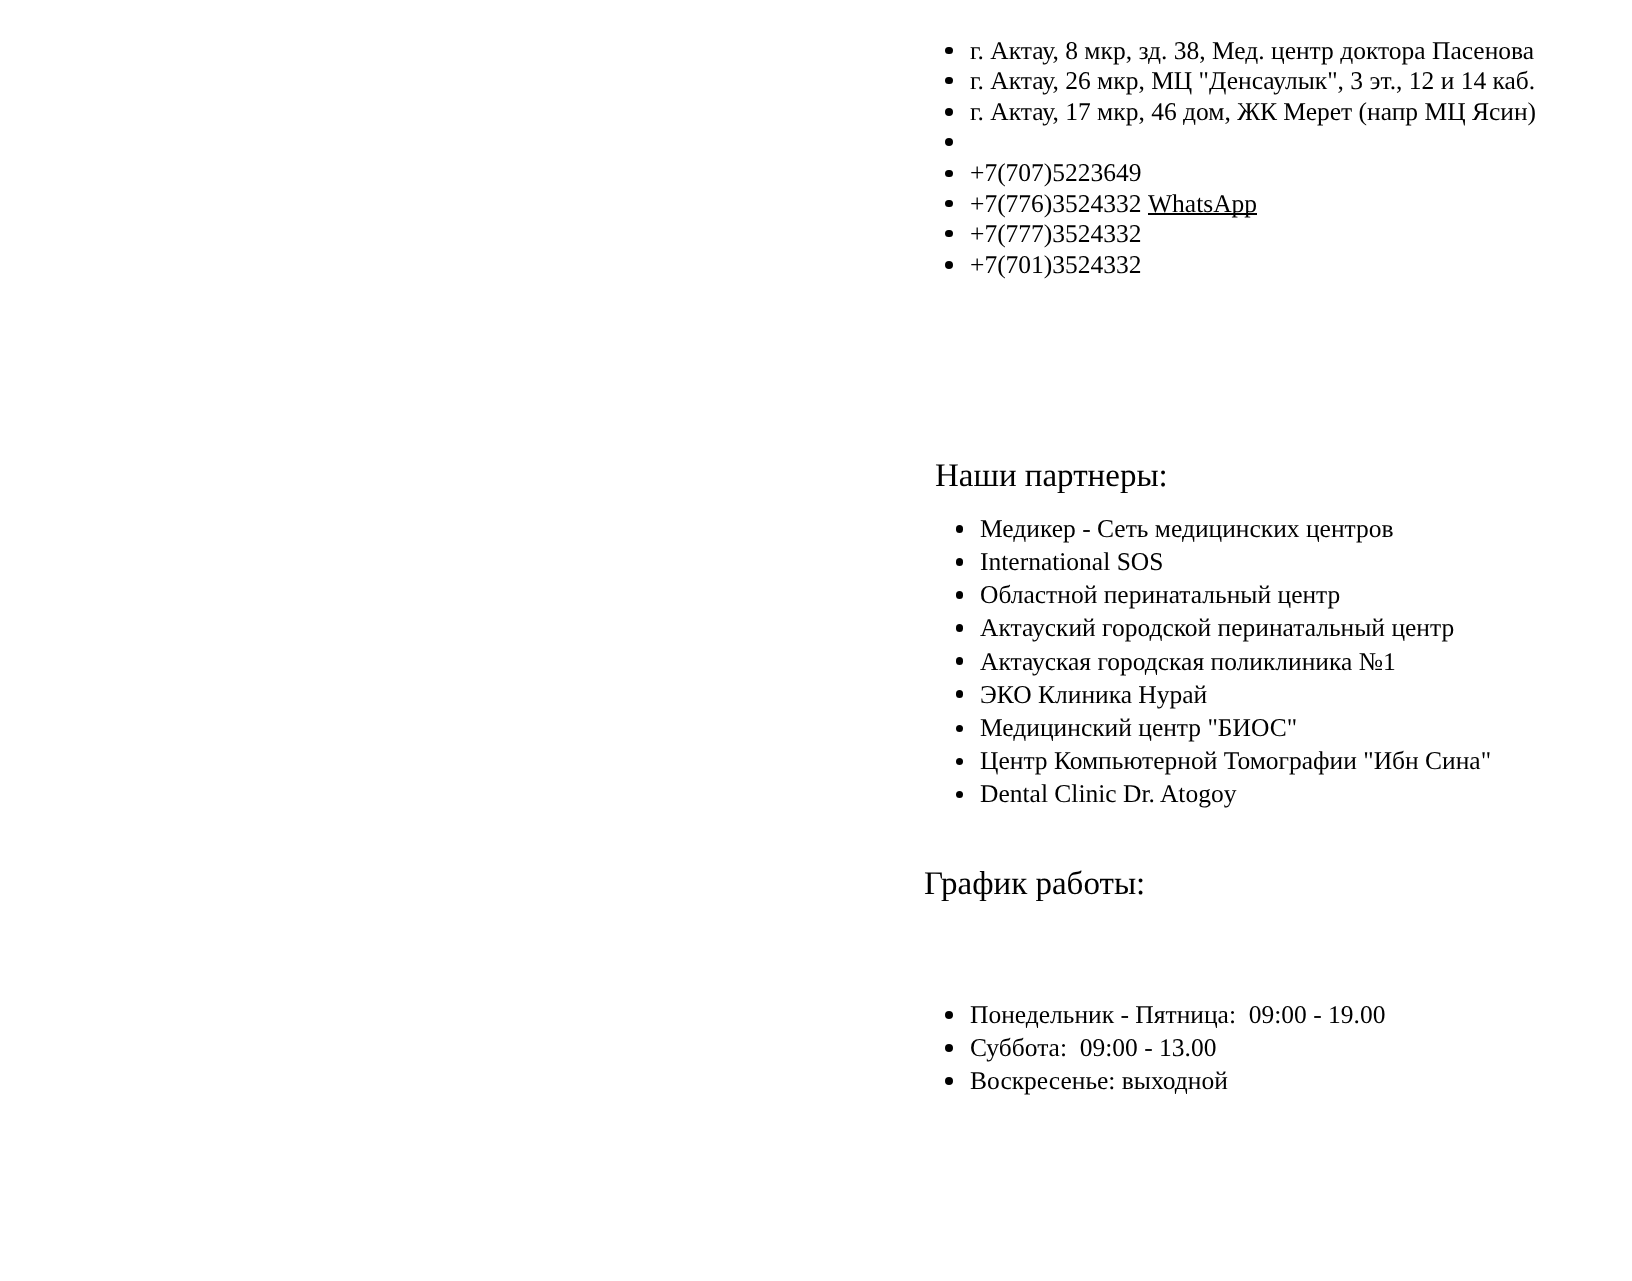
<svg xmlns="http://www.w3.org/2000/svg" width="1632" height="1281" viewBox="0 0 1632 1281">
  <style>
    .t1 { font: 25.5px Liberation Serif; fill: #000; }
    .t2 { font: 33px Liberation Serif; fill: #000; }
  </style>
  <rect width="100%" height="100%" fill="#fff"/>
  <rect x="945" y="47" width="8" height="7" rx="3.5" fill="#000"/>
  <text x="970" y="59" class="t1">г. Актау, 8 мкр, зд. 38, Мед. центр доктора Пасенова</text>
  <rect x="945" y="77" width="8" height="7" rx="3.5" fill="#000"/>
  <text x="970" y="89" class="t1">г. Актау, 26 мкр, МЦ "Денсаулык", 3 эт., 12 и 14 каб.</text>
  <circle cx="949" cy="112" r="4" fill="#000"/>
  <text x="970" y="120" class="t1">г. Актау, 17 мкр, 46 дом, ЖК Мерет (напр МЦ Ясин)</text>
  <circle cx="949" cy="142" r="4" fill="#000"/>
  <rect x="945" y="170" width="8" height="7" rx="3.5" fill="#000"/>
  <text x="970" y="181" class="t1">+7(707)5223649</text>
  <rect x="945" y="200" width="8" height="7" rx="3.5" fill="#000"/>
  <text x="970" y="212" class="t1">+7(776)3524332</text>
  <rect x="1148" y="213" width="109" height="2" fill="#000"/>
  <text x="1148" y="212" class="t1">WhatsApp</text>
  <rect x="945" y="230" width="8" height="7" rx="3.5" fill="#000"/>
  <text x="970" y="242" class="t1">+7(777)3524332</text>
  <circle cx="949" cy="265" r="4" fill="#000"/>
  <text x="970" y="273" class="t1">+7(701)3524332</text>
  <text x="935" y="486" class="t2">Наши партнеры:</text>
  <rect x="956" y="525" width="7" height="8" rx="3.5" fill="#000"/>
  <text x="980" y="537" class="t1">Медикер - Сеть медицинских центров</text>
  <rect x="956" y="558" width="7" height="8" rx="3.5" fill="#000"/>
  <text x="980" y="570" class="t1">International SOS</text>
  <rect x="956" y="591" width="7" height="8" rx="3.5" fill="#000"/>
  <text x="980" y="603" class="t1">Областной перинатальный центр</text>
  <rect x="956" y="624" width="7" height="8" rx="3.5" fill="#000"/>
  <text x="980" y="636" class="t1">Актауский городской перинатальный центр</text>
  <rect x="956" y="657" width="7" height="8" rx="3.5" fill="#000"/>
  <text x="980" y="670" class="t1">Актауская городская поликлиника №1</text>
  <rect x="956" y="690" width="7" height="8" rx="3.5" fill="#000"/>
  <text x="980" y="703" class="t1">ЭКО Клиника Нурай</text>
  <circle cx="959.5" cy="728.5" r="3.5" fill="#000"/>
  <text x="980" y="736" class="t1">Медицинский центр "БИОС"</text>
  <circle cx="959.5" cy="761.5" r="3.5" fill="#000"/>
  <text x="980" y="769" class="t1">Центр Компьютерной Томографии "Ибн Сина"</text>
  <circle cx="959.5" cy="794.5" r="3.5" fill="#000"/>
  <text x="980" y="802" class="t1">Dental Clinic Dr. Atogoy</text>
  <text x="924" y="894" class="t2">График работы:</text>
  <circle cx="949" cy="1015" r="4" fill="#000"/>
  <text x="970" y="1023" class="t1" xml:space="preserve">Понедельник - Пятница:  09:00 - 19.00</text>
  <circle cx="949" cy="1048" r="4" fill="#000"/>
  <text x="970" y="1056" class="t1" xml:space="preserve">Суббота:  09:00 - 13.00</text>
  <circle cx="949" cy="1081" r="4" fill="#000"/>
  <text x="970" y="1089" class="t1">Воскресенье: выходной</text>
</svg>
